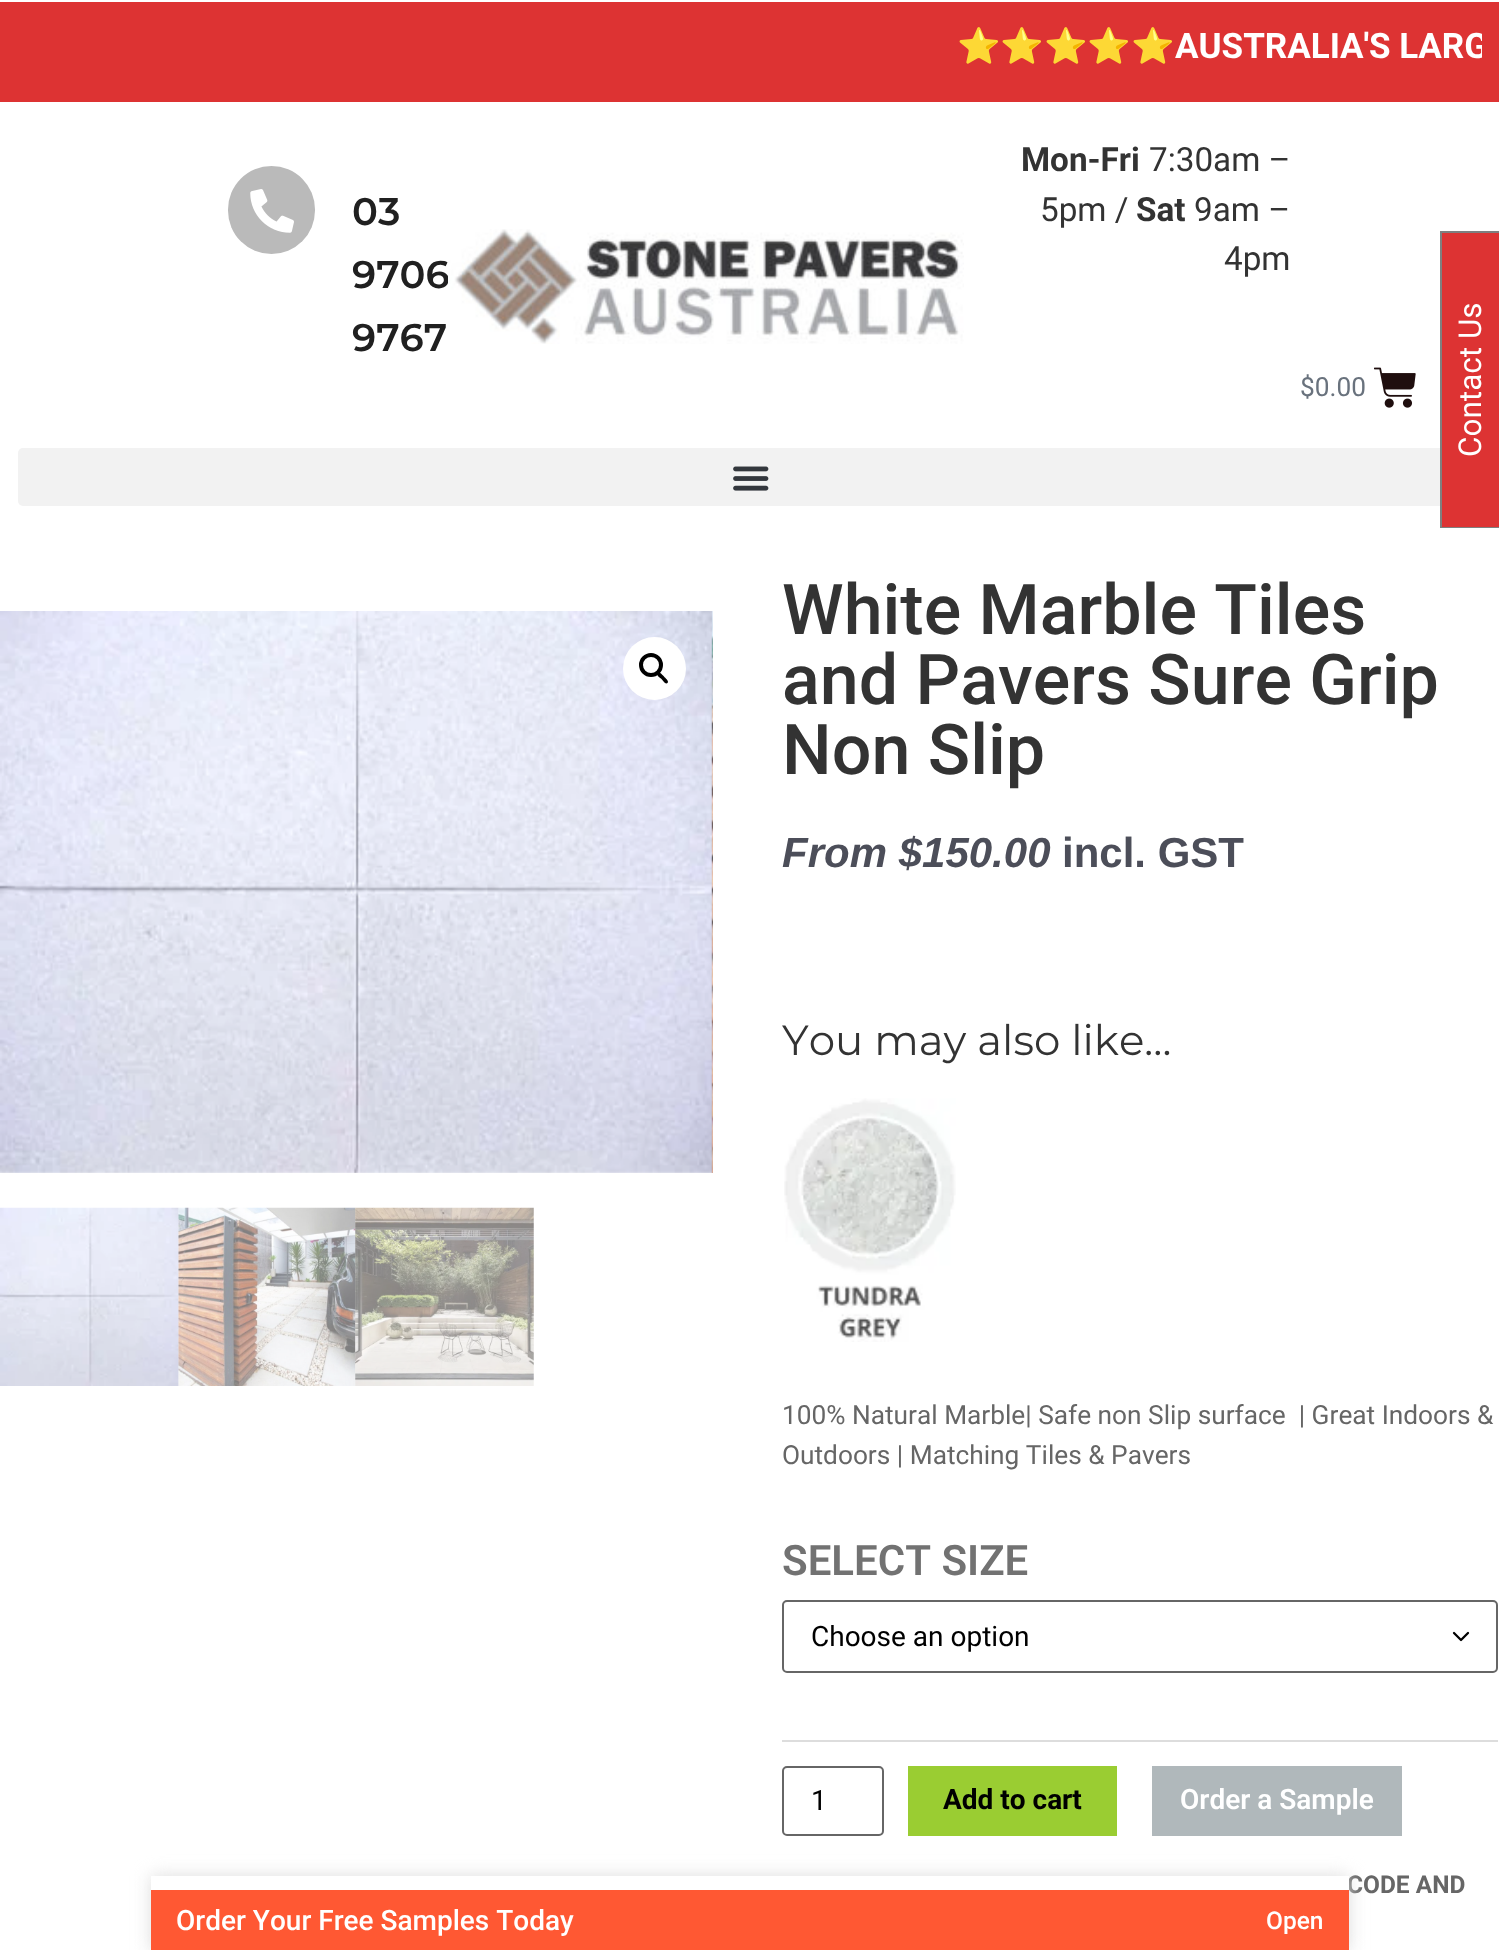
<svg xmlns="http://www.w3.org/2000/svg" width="1499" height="1950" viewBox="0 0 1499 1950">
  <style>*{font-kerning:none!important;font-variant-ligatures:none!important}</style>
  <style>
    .t1 { font: bold 35px Noto Color Emoji; fill: #fff; }
    .t2 { font: bold 35px Roboto; fill: #fff; }
    .t3 { font: 600 38.5px Montserrat; fill: #202020; }
    .t4 { font: bold 33.25px Roboto; fill: #333; }
    .t5 { font: 33.25px Roboto; fill: #333; }
    .t6 { font: 26.25px Roboto; fill: #69727d; }
    .t7 { font: 31.5px Roboto; fill: #fff; }
    .t8 { font: 500 70px Roboto; fill: #333; }
    .t9 { font: italic bold 42px Liberation Sans; fill: #4c4e59; }
    .t10 { font: bold 42px Liberation Sans; fill: #4c4e59; }
    .t11 { font: 42px Montserrat; fill: #333; }
    .t12 { font: 26.25px Roboto; fill: #666; }
    .t13 { font: 600 42px Roboto; fill: #727272; }
    .t14 { font: 28px Roboto; fill: #000; }
    .t15 { font: bold 28px Roboto; fill: #000; }
    .t16 { font: 600 28px Roboto; fill: #fff; }
    .t17 { font: bold 24.5px Roboto; fill: #666; }
    .t18 { font: 500 28px Roboto; fill: #fff; }
    .t19 { font: 500 24.5px Roboto; fill: #fff; }
  </style>
  <defs>
    <clipPath id="clip1"><rect x="18" y="19" width="1464" height="53"/></clipPath>
  </defs>
  <rect width="100%" height="100%" fill="#fff"/>
  <rect x="0" y="2" width="1499" height="100" fill="#d33"/>
  <text x="957" y="58" class="t1">⭐⭐⭐⭐⭐</text>
  <g clip-path="url(#clip1)">
    <text x="1175" y="58" class="t2">AUSTRALIA'S LARG</text>
  </g>
  <rect x="228" y="166" width="87" height="88" rx="43.5" fill="#bababa"/>
  <image x="250" y="189" width="44" height="44" href="images/1.png"/>
  <text x="352" y="225" class="t3">03</text>
  <text x="352" y="288" class="t3">9706</text>
  <text x="352" y="351" class="t3">9767</text>
  <image x="448" y="229" width="516" height="115" href="images/2.png"/>
  <text x="1021" y="171" class="t4">Mon-Fri</text>
  <text x="1149" y="171" class="t5">7:30am –</text>
  <text x="1040" y="221" class="t5">5pm /</text>
  <text x="1136" y="221" class="t4">Sat</text>
  <text x="1194" y="221" class="t5">9am –</text>
  <text x="1224" y="270" class="t5">4pm</text>
  <text x="1300" y="396" class="t6">$0.00</text>
  <image x="1374" y="367" width="42" height="41" href="images/3.png"/>
  <rect x="18" y="448" width="1464" height="58" rx="5" fill="#f2f2f2"/>
  <image x="733" y="466" width="36" height="25" href="images/4.png"/>
  <rect x="1442" y="233" width="57" height="294" fill="#d33"/>
  <rect x="1440" y="231" width="2" height="297" fill="#7f7f7f"/>
  <rect x="1440" y="231" width="59" height="2" fill="#7f7f7f"/>
  <rect x="1440" y="527" width="59" height="1" fill="#7f7f7f"/>
  <text x="1481" y="457" transform="rotate(-90 1481 457)" class="t7">Contact Us</text>
  <image x="0" y="611" width="713" height="562" href="images/5.png"/>
  <image x="711" y="611" width="2" height="562" href="images/6.png"/>
  <circle cx="654.5" cy="668.5" r="31.5" fill="#fff"/>
  <circle cx="651" cy="665" r="10" fill="none" stroke="#000" stroke-width="4"/>
  <path d="M657.5 673C659.5 671 663 675.5 664 676.5C665 678 669.5 681 667.5 683C665.5 685 662.5 680 661.5 679C660.5 678 655.5 675 657.5 673Z" fill="#000"/>
  <image x="0" y="1207" width="179" height="179" href="images/7.png"/>
  <image x="178" y="1207" width="178" height="179" href="images/8.png"/>
  <image x="355" y="1207" width="179" height="179" href="images/9.png"/>
  <text x="782" y="634" class="t8">White Marble Tiles</text>
  <text x="782" y="704" class="t8">and Pavers Sure Grip</text>
  <text x="782" y="774" class="t8">Non Slip</text>
  <text x="782" y="867" class="t9">From $150.00</text>
  <text x="1062" y="867" class="t10">incl. GST</text>
  <text x="782" y="1055" class="t11">You may also like…</text>
  <image x="784" y="1098" width="172" height="244" href="images/10.png"/>
  <text x="782" y="1424" class="t12" xml:space="preserve">100% Natural Marble| Safe non Slip surface  | Great Indoors &amp;</text>
  <text x="782" y="1464" class="t12">Outdoors | Matching Tiles &amp; Pavers</text>
  <text x="782" y="1575" class="t13">SELECT SIZE</text>
  <rect x="782" y="1740" width="716" height="2" fill="#ddd"/>
  <path d="M1454 1633L1461 1640L1468 1633" fill="none" stroke="#000" stroke-width="2.3" stroke-linecap="round" stroke-linejoin="round"/>
  <rect x="783" y="1601" width="714" height="71" rx="4" fill="none" stroke="#666" stroke-width="2"/>
  <text x="811" y="1646" class="t14">Choose an option</text>
  <rect x="783" y="1767" width="100" height="68" rx="4" fill="none" stroke="#666" stroke-width="2"/>
  <text x="811" y="1810" class="t14">1</text>
  <rect x="908" y="1766" width="209" height="70" fill="#9acd32"/>
  <text x="943" y="1809" class="t15">Add to cart</text>
  <rect x="1152" y="1766" width="250" height="70" fill="#b0b8bb"/>
  <text x="1180" y="1809" class="t16">Order a Sample</text>
  <text x="1347" y="1893" class="t17">CODE AND</text>
  <rect x="151" y="1876" width="1198" height="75" fill="#ddd" filter="blur(9px)"/>
  <rect x="151" y="1876" width="1198" height="14" fill="#fff"/>
  <rect x="151" y="1890" width="1198" height="60" fill="#ff5833"/>
  <text x="176" y="1930" class="t18">Order Your Free Samples Today</text>
  <text x="1266" y="1929" class="t19">Open</text>
</svg>
